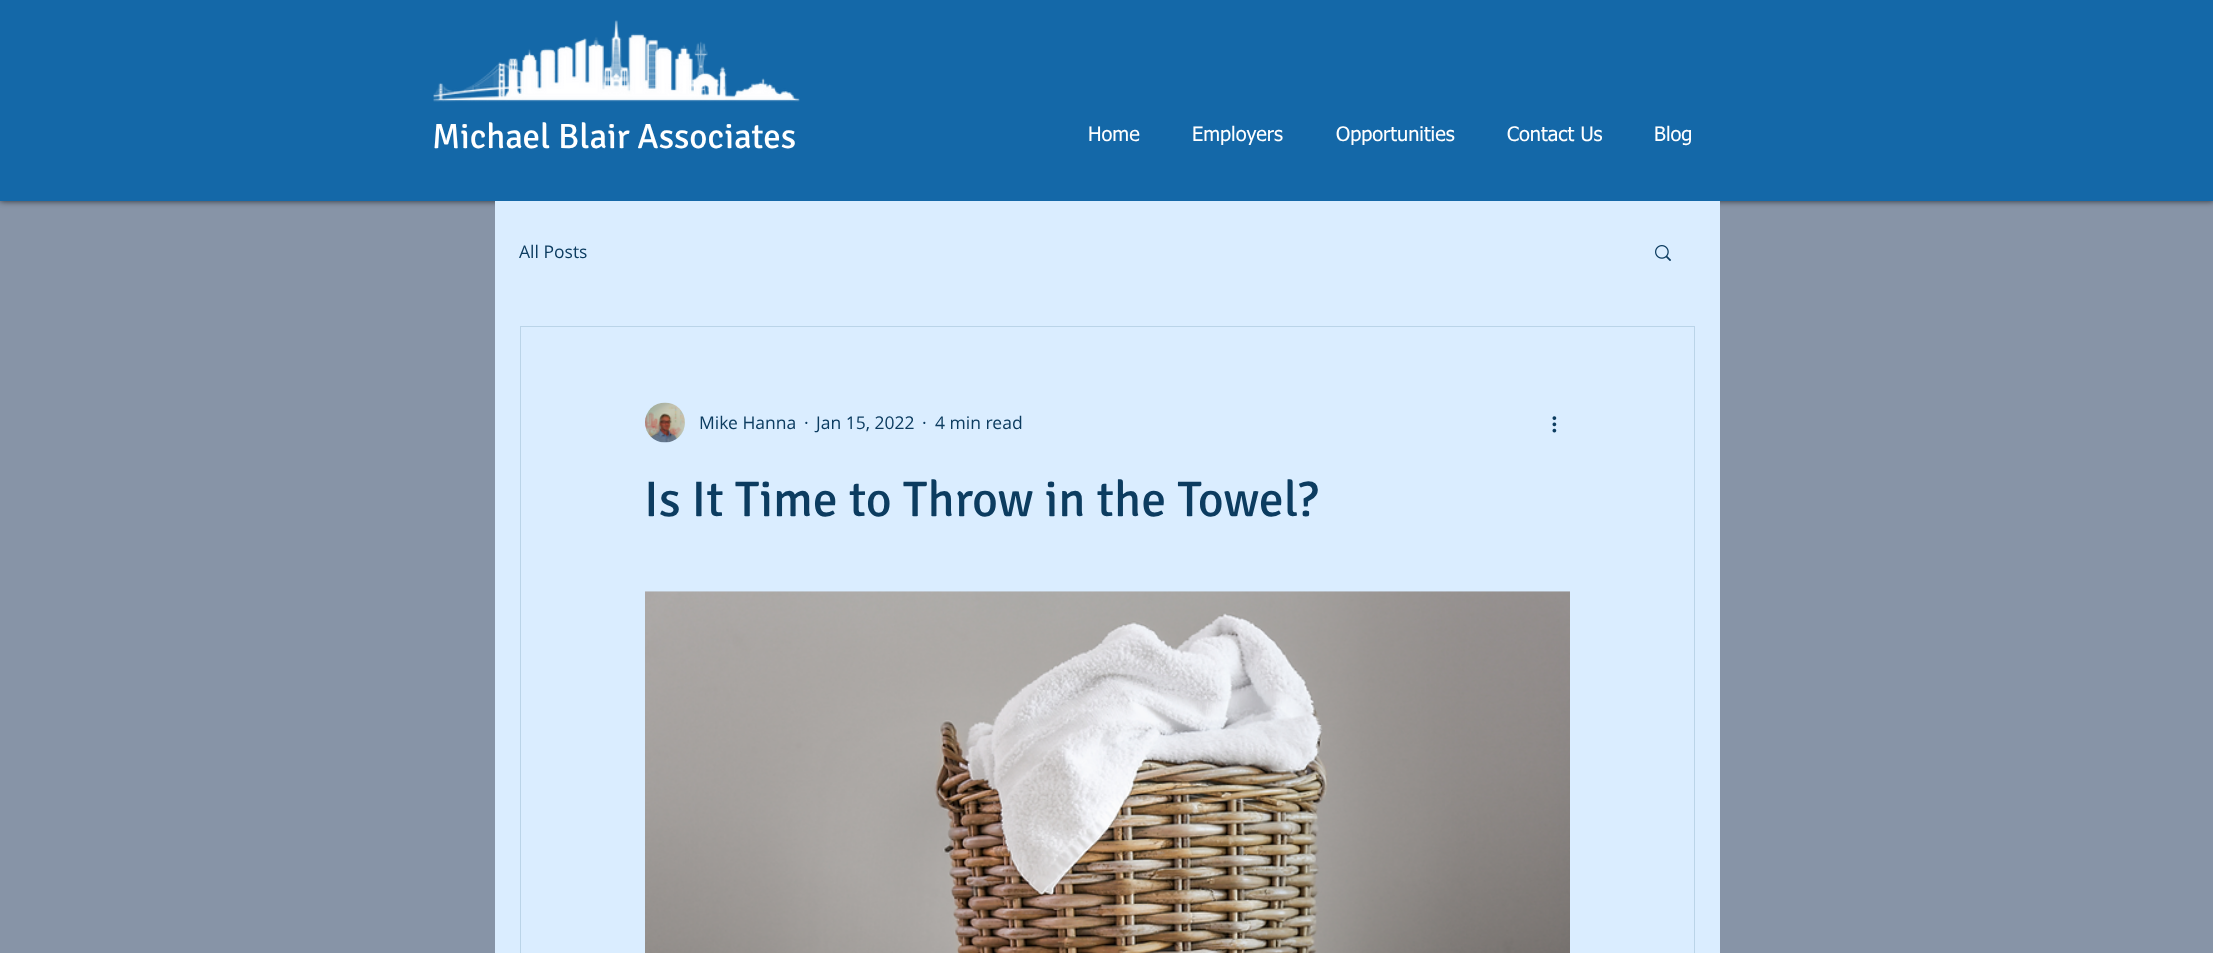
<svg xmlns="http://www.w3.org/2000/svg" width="2213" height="953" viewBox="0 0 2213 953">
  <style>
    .t1 { font: 35px Signika; fill: #fff; }
    .t2 { font: 20px tahoma; fill: #fff; }
    .t3 { font: 17.5px Open Sans; fill: #0c3c60; }
    .t4 { font: 50px Signika; fill: #0c3c60; }
  </style>
  <rect width="100%" height="100%" fill="#8794a7"/>
  <rect x="0" y="0" width="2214" height="201" fill="#000000b3" filter="blur(3px)"/>
  <rect x="0" y="0" width="2213" height="201" fill="#1468a8"/>
  <image x="433" y="20" width="367" height="82" href="images/1.png"/>
  <text x="432" y="148" class="t1">Michael Blair Associates</text>
  <text x="1088" y="141" class="t2">Home</text>
  <text x="1192" y="141" class="t2">Employers</text>
  <text x="1336" y="141" class="t2">Opportunities</text>
  <text x="1507" y="141" class="t2">Contact Us</text>
  <text x="1654" y="141" class="t2">Blog</text>
  <rect x="495" y="201" width="1225" height="752" fill="#daedff"/>
  <text x="519" y="258" class="t3">All Posts</text>
  <image x="1655" y="245" width="16" height="16" href="images/2.png"/>
  <rect x="520.5" y="326.5" width="1174" height="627" fill="none" stroke="#bad4e8"/>
  <image x="645" y="402" width="40" height="41" href="images/3.png"/>
  <text x="699" y="429" class="t3">Mike Hanna</text>
  <text x="804" y="429" class="t3">·</text>
  <text x="816" y="429" class="t3">Jan 15, 2022</text>
  <text x="922" y="429" class="t3">·</text>
  <text x="935" y="429" class="t3">4 min read</text>
  <image x="1552" y="416" width="5" height="17" href="images/4.png"/>
  <text x="644" y="516" class="t4">Is It Time to Throw in the Towel?</text>
  <image x="645" y="591" width="925" height="362" href="images/5.png"/>
</svg>
